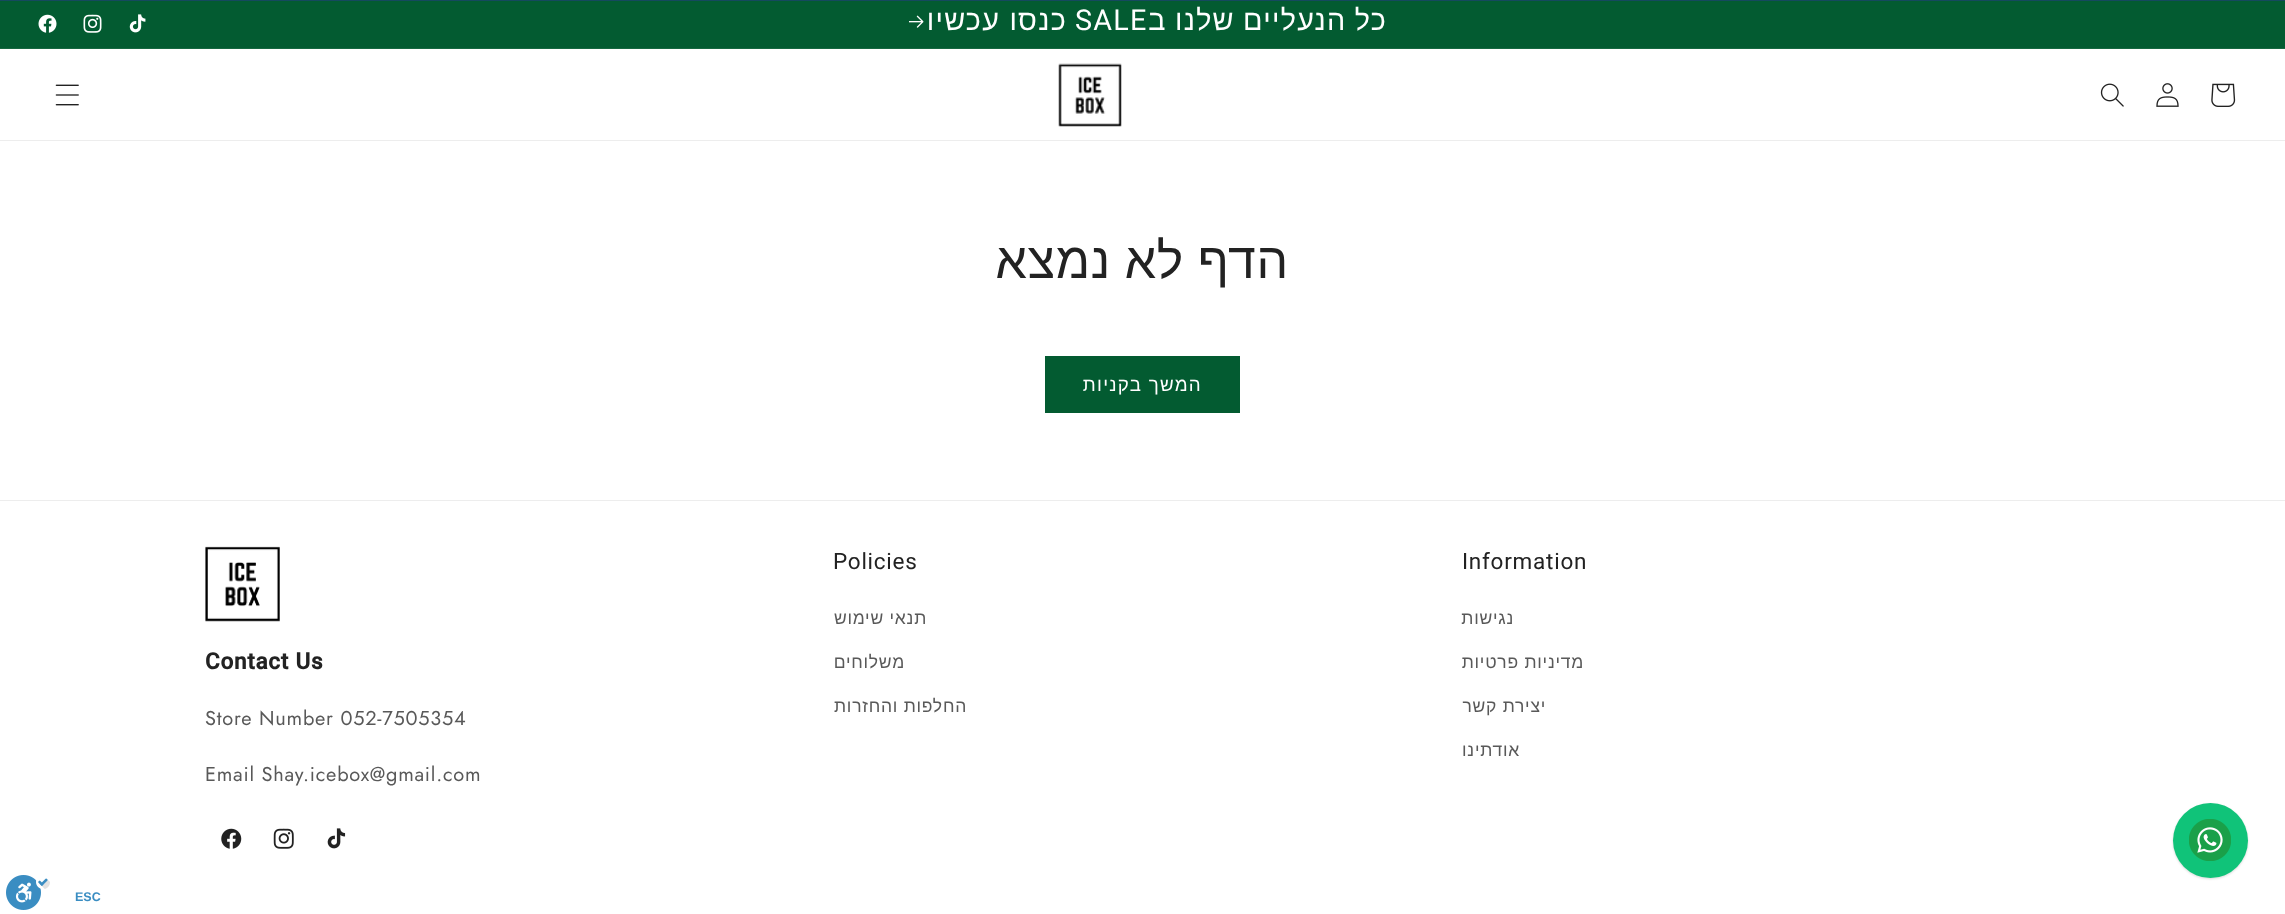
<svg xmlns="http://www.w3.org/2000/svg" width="2285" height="914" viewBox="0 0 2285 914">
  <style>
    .t1 { font: 28.75px Liberation Sans; letter-spacing: 1.25px; direction: rtl; fill: #fff; }
    .t2 { font: 28.75px Roboto; letter-spacing: 1.25px; fill: #fff; }
    .t3 { font: 50px Liberation Sans; letter-spacing: 0.75px; direction: rtl; fill: #222; }
    .t4 { font: 18.75px Liberation Sans; letter-spacing: 1.25px; direction: rtl; fill: #fff; }
    .t5 { font: 22.5px Roboto; letter-spacing: 0.75px; fill: #222; }
    .t6 { font: 17.5px Liberation Sans; letter-spacing: 0.75px; direction: rtl; fill: #595959; }
    .t7 { font: bold 22.5px Roboto; letter-spacing: 0.75px; fill: #222; }
    .t8 { font: 20px Jost; letter-spacing: 0.75px; fill: #595959; }
    .t9 { font: bold 12.5px Liberation Sans; fill: #3a8dc2; }
  </style>
  <rect width="100%" height="100%" fill="#fff"/>
  <rect x="0" y="1" width="2285" height="47" fill="#035b31"/>
  <rect x="0" y="48" width="2285" height="1" fill="#176841"/>
  <text x="1387" y="30" word-spacing="-1" class="t1">כל הנעליים שלנו ב</text>
  <text x="1075" y="30" class="t2">SALE</text>
  <text x="1067" y="30" class="t1">כנסו עכשיו</text>
  <image x="909" y="15" width="15" height="13" href="images/1.png"/>
  <image x="129" y="14" width="17" height="19" href="images/2.png"/>
  <image x="83" y="14" width="19" height="19" href="images/3.png"/>
  <image x="38" y="14" width="19" height="19" href="images/4.png"/>
  <rect x="0" y="140" width="2285" height="1" fill="#ededed"/>
  <image x="2211" y="83" width="25" height="24" href="images/5.png"/>
  <image x="2156" y="83" width="23" height="24" href="images/6.png"/>
  <image x="2100" y="83" width="24" height="24" href="images/7.png"/>
  <image x="1058" y="63" width="64" height="64" href="images/8.png"/>
  <image x="55" y="84" width="24" height="22" href="images/9.png"/>
  <text x="1289" y="278" word-spacing="-1" class="t3">הדף לא נמצא</text>
  <rect x="1045" y="356" width="195" height="57" fill="#035b31"/>
  <text x="1202" y="391" class="t4">המשך בקניות</text>
  <rect x="0" y="500" width="2285" height="1" fill="#ededed"/>
  <text x="1462" y="569" class="t5">Information</text>
  <text x="1514" y="624" class="t6">נגישות</text>
  <text x="1584" y="668" class="t6">מדיניות פרטיות</text>
  <text x="1546" y="712" class="t6">יצירת קשר</text>
  <text x="1520" y="756" class="t6">אודתינו</text>
  <text x="833" y="569" class="t5">Policies</text>
  <text x="927" y="624" class="t6">תנאי שימוש</text>
  <text x="905" y="668" class="t6">משלוחים</text>
  <text x="967" y="712" class="t6">החלפות והחזרות</text>
  <image x="205" y="546" width="75" height="76" href="images/10.png"/>
  <text x="205" y="669" class="t7">Contact Us</text>
  <text x="205" y="725" class="t8">Store Number 052-7505354</text>
  <text x="205" y="781" class="t8">Email Shay.icebox@gmail.com</text>
  <image x="327" y="828" width="19" height="21" href="images/11.png"/>
  <image x="273" y="828" width="21" height="21" href="images/12.png"/>
  <image x="221" y="828" width="21" height="21" href="images/13.png"/>
  <rect x="2173" y="804" width="75" height="75" rx="37.5" fill="#00000026" filter="blur(1px)"/>
  <circle cx="2210.5" cy="840.5" r="37.5" fill="#10c379"/>
  <image x="2189" y="819" width="42" height="42" href="images/14.png"/>
  <rect x="0" y="0" width="2285" height="1" fill="#15495f"/>
  <text x="75" y="901" class="t9">ESC</text>
  <image x="6" y="875" width="44" height="35" href="images/15.png"/>
</svg>
